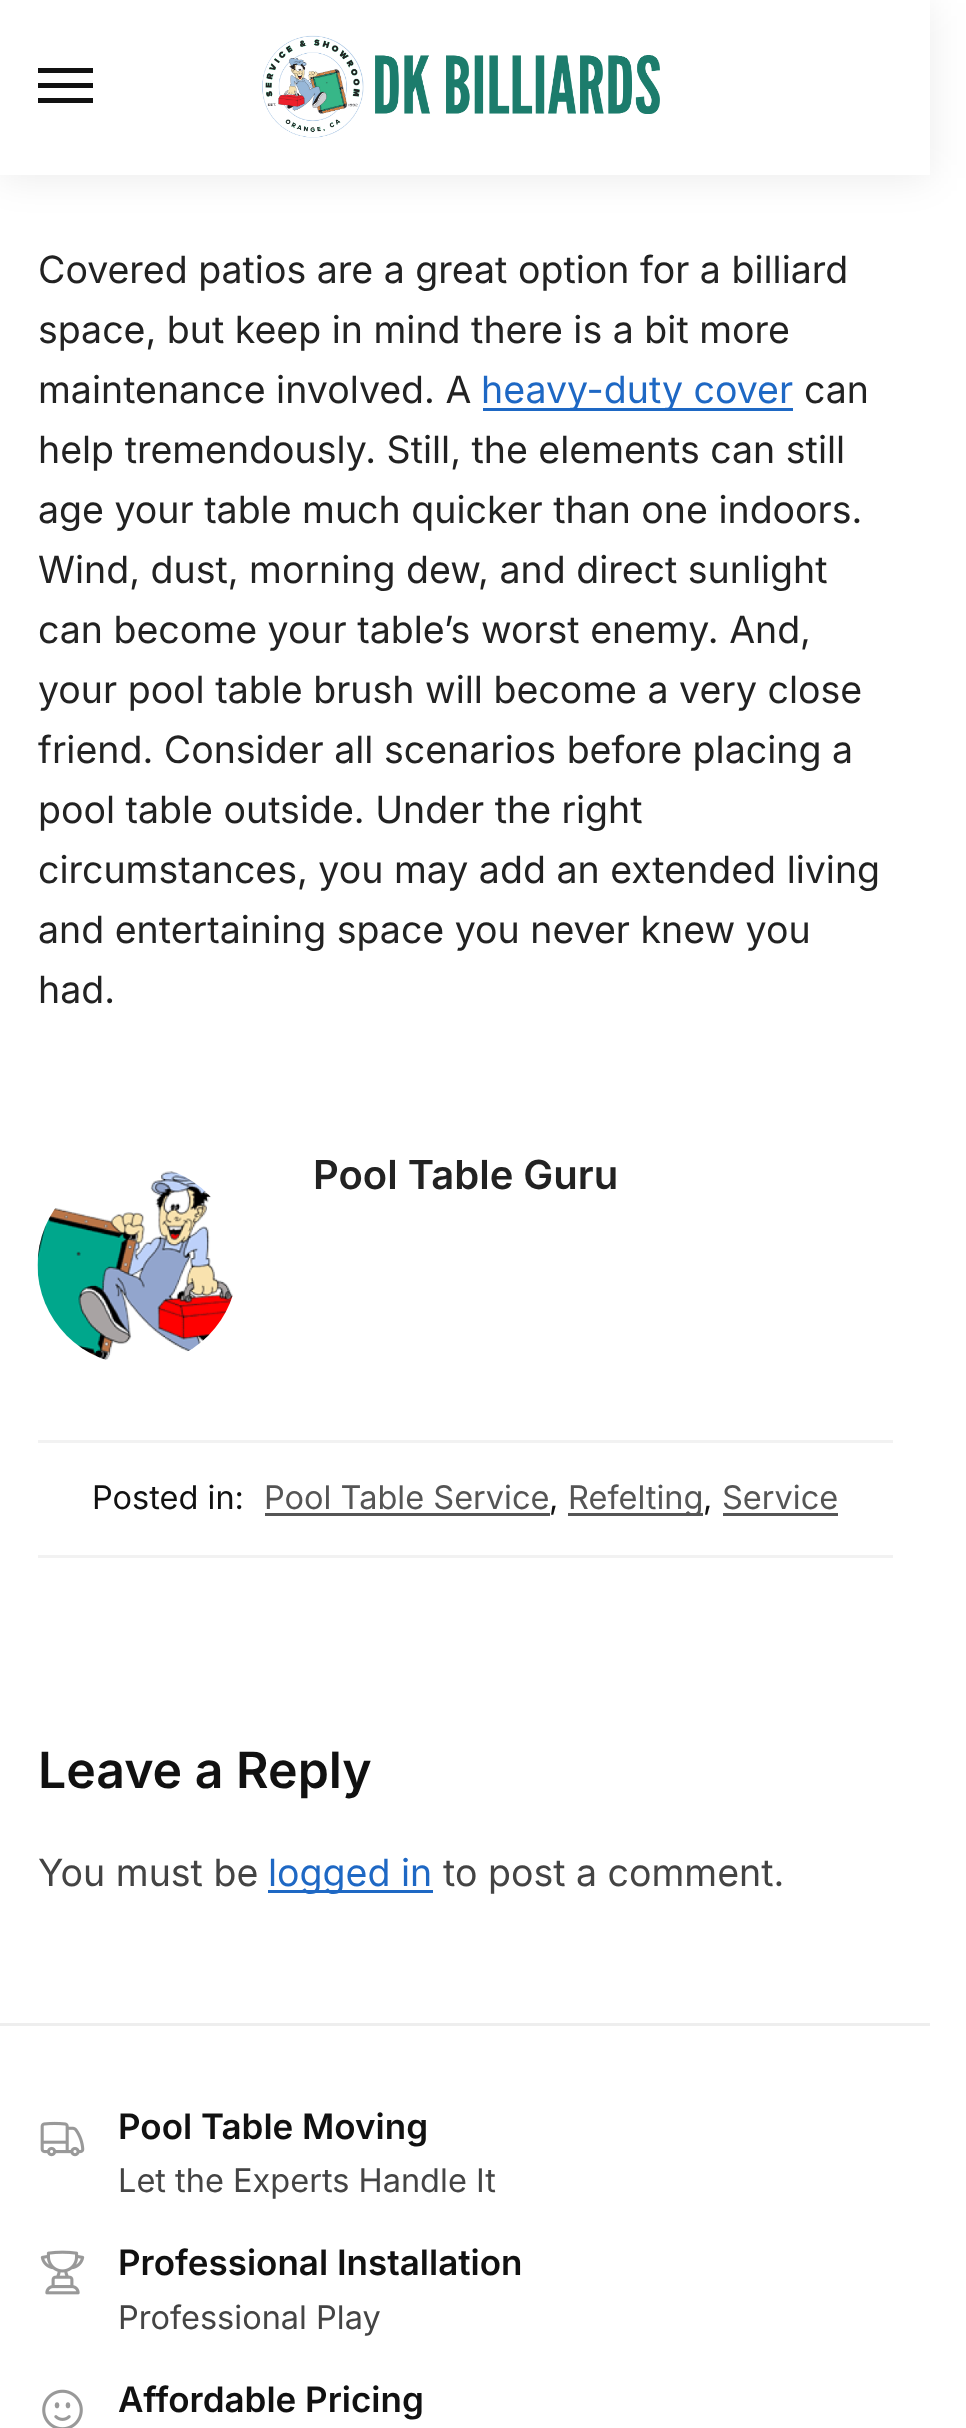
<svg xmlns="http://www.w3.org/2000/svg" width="966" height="2428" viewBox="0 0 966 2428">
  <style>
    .t1 { font: 37.5px Inter; fill: #222; }
    .t2 { font: 37.5px Inter; fill: #1e68c4; }
    .t3 { font: 600 40px Inter; fill: #222; }
    .t4 { font: 32.5px Inter; fill: #111; }
    .t5 { font: 32.5px Inter; fill: #555; }
    .t6 { font: 600 50px Inter; fill: #111; }
    .t7 { font: 37.5px Inter; fill: #444; }
    .t8 { font: 600 35px Inter; fill: #111; }
    .t9 { font: 32.5px Inter; fill: #444; }
  </style>
  <rect width="100%" height="100%" fill="#fff"/>
  <rect x="0" y="3" width="930" height="175" fill="#00000014" filter="blur(19px)"/>
  <rect x="0" y="0" width="930" height="175" fill="#fff"/>
  <rect x="38" y="68" width="55" height="5" fill="#111"/>
  <rect x="38" y="83" width="55" height="5" fill="#111"/>
  <rect x="38" y="98" width="55" height="5" fill="#111"/>
  <image x="262" y="35" width="398" height="103" href="images/1.png"/>
  <text x="38" y="283" class="t1">Covered patios are a great option for a billiard</text>
  <text x="38" y="343" class="t1">space, but keep in mind there is a bit more</text>
  <text x="38" y="403" class="t1">maintenance involved. A</text>
  <rect x="483" y="408" width="310" height="3" fill="#1e68c4"/>
  <text x="481" y="403" class="t2">heavy-duty cover</text>
  <text x="804" y="403" class="t1">can</text>
  <text x="38" y="463" class="t1">help tremendously. Still, the elements can still</text>
  <text x="38" y="523" class="t1">age your table much quicker than one indoors.</text>
  <text x="38" y="583" class="t1">Wind, dust, morning dew, and direct sunlight</text>
  <text x="38" y="643" class="t1">can become your table’s worst enemy. And,</text>
  <text x="38" y="703" class="t1">your pool table brush will become a very close</text>
  <text x="38" y="763" class="t1">friend. Consider all scenarios before placing a</text>
  <text x="38" y="823" class="t1">pool table outside. Under the right</text>
  <text x="38" y="883" class="t1">circumstances, you may add an extended living</text>
  <text x="38" y="943" class="t1">and entertaining space you never knew you</text>
  <text x="38" y="1003" class="t1">had.</text>
  <image x="37" y="1171" width="196" height="189" href="images/2.png"/>
  <text x="313" y="1189" class="t3">Pool Table Guru</text>
  <rect x="38" y="1440" width="855" height="3" fill="#f2f2f2"/>
  <rect x="38" y="1555" width="855" height="3" fill="#f2f2f2"/>
  <text x="92" y="1509" class="t4">Posted in:</text>
  <text x="264" y="1509" class="t5">Pool Table Service</text>
  <text x="549" y="1509" class="t4">,</text>
  <rect x="265" y="1513" width="285" height="3" fill="#555"/>
  <rect x="568" y="1513" width="135" height="3" fill="#555"/>
  <text x="568" y="1509" class="t5">Refelting</text>
  <text x="703" y="1509" class="t4">,</text>
  <rect x="723" y="1513" width="115" height="3" fill="#555"/>
  <text x="722" y="1509" class="t5">Service</text>
  <text x="38" y="1788" class="t6">Leave a Reply</text>
  <text x="38" y="1886" class="t7">You must be</text>
  <rect x="268" y="1890" width="165" height="3" fill="#1e68c4"/>
  <text x="268" y="1886" class="t2">logged in</text>
  <text x="443" y="1886" class="t7">to post a comment.</text>
  <rect x="0" y="2023" width="930" height="3" fill="#eee"/>
  <text x="118" y="2139" class="t8">Pool Table Moving</text>
  <image x="40" y="2121" width="45" height="36" href="images/3.png"/>
  <text x="118" y="2192" class="t9">Let the Experts Handle It</text>
  <text x="118" y="2275" class="t8">Professional Installation</text>
  <image x="40" y="2250" width="45" height="45" href="images/4.png"/>
  <text x="118" y="2329" class="t9">Professional Play</text>
  <image x="42" y="2389" width="41" height="39" href="images/5.png"/>
  <text x="118" y="2412" class="t8">Affordable Pricing</text>
</svg>
